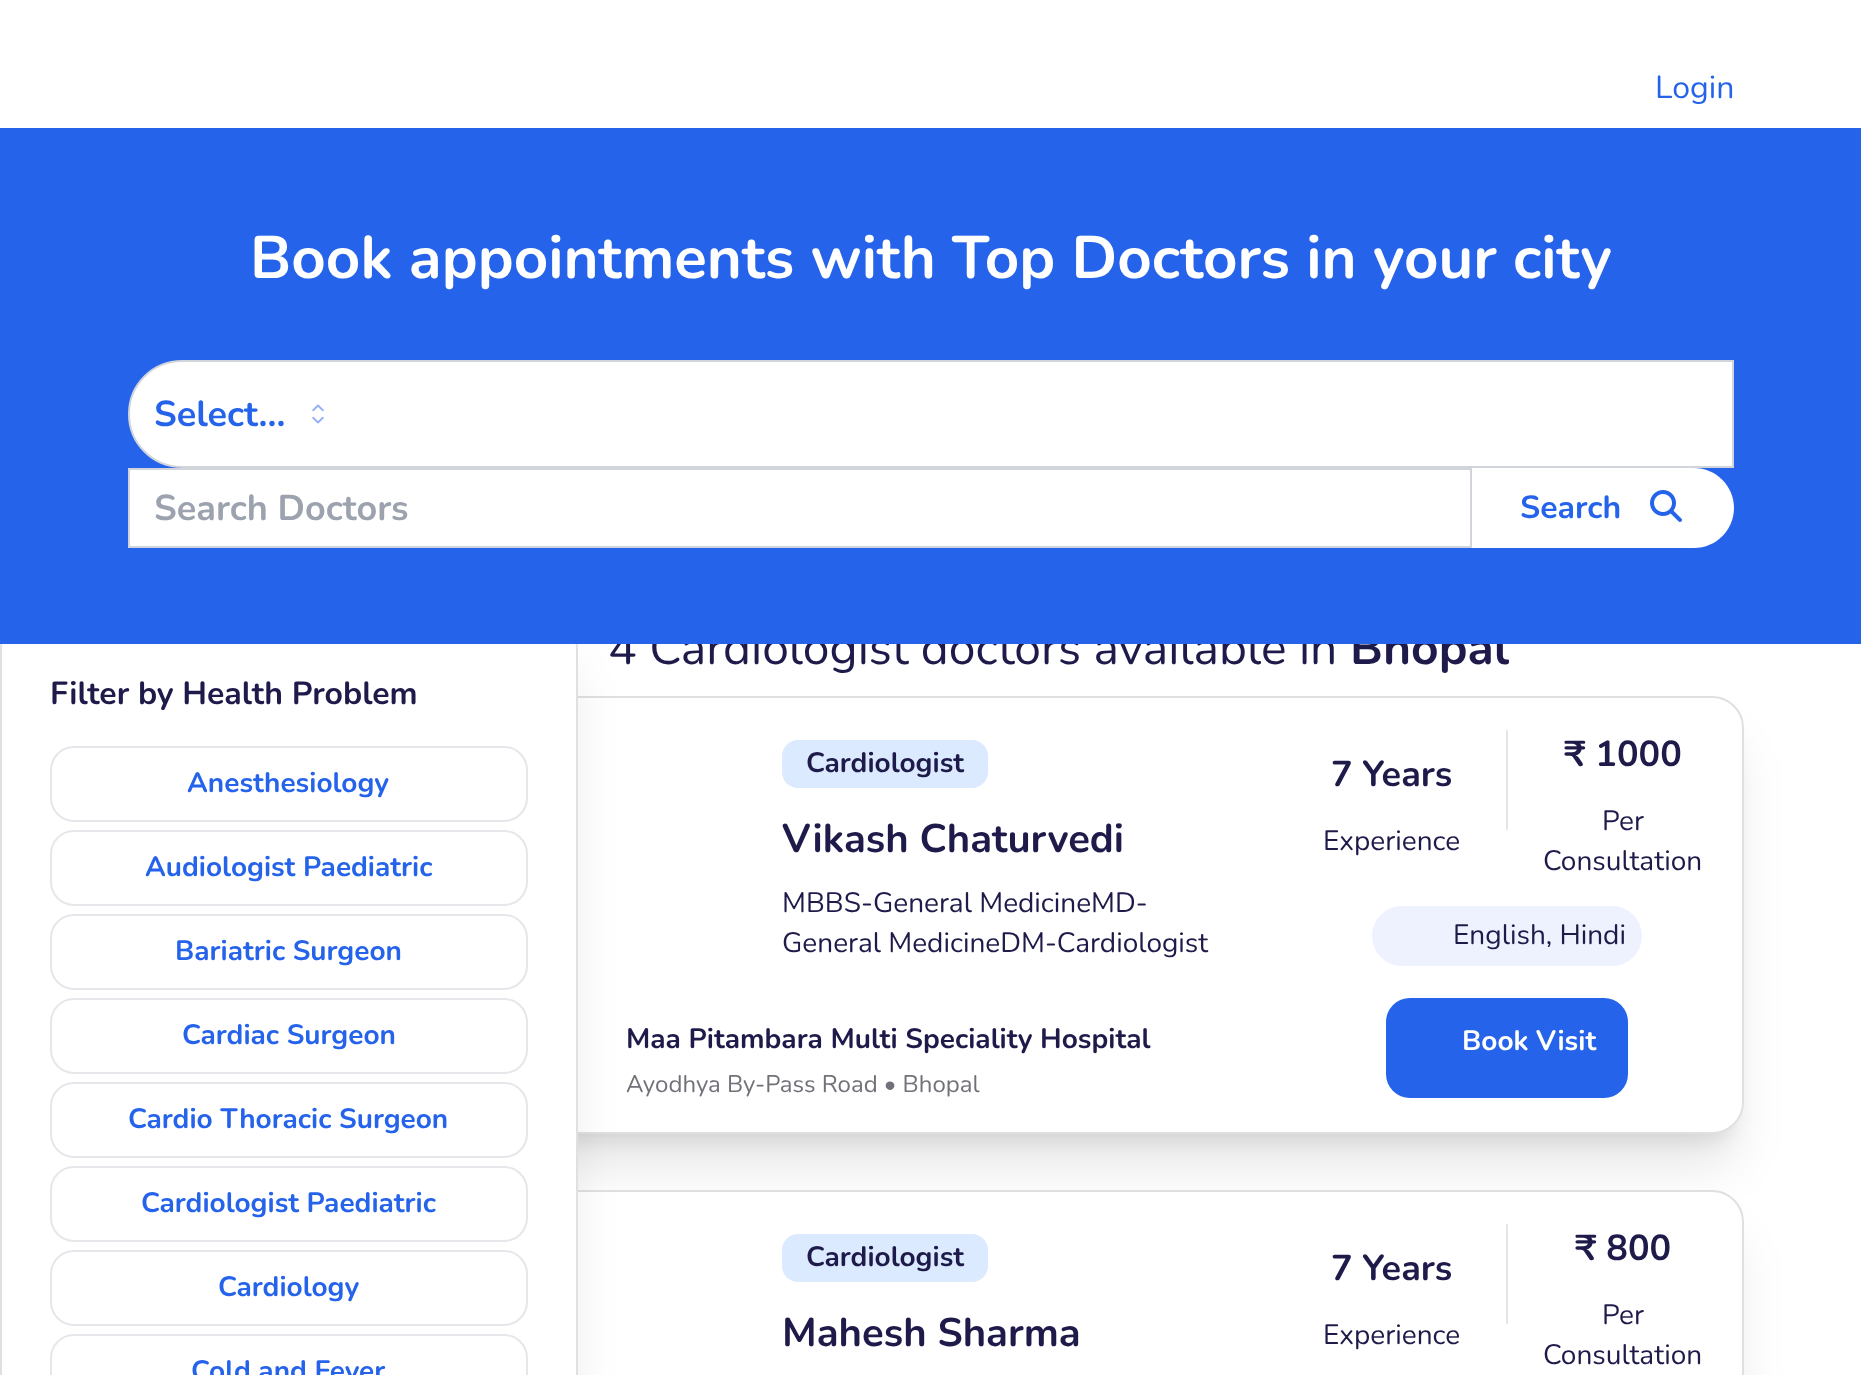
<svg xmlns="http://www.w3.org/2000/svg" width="1861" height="1375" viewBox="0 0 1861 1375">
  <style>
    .t1 { font: 32px Nunito; fill: #2563eb; }
    .t2 { font: 48px Nunito; fill: #1e1b4b; }
    .t3 { font: bold 48px Nunito; fill: #1e1b4b; }
    .t4 { font: bold 60px Nunito; fill: #fff; }
    .t5 { font: bold 36px Nunito; fill: #2563eb; }
    .t6 { font: bold 36px Nunito; fill: #9ca3af; }
    .t7 { font: bold 32px Nunito; fill: #2563eb; }
    .t8 { font: bold 32px Nunito; fill: #1e1b4b; }
    .t9 { font: bold 28px Nunito; fill: #2563eb; }
    .t10 { font: bold 28px Nunito; fill: #1e1b4b; }
    .t11 { font: bold 40px Nunito; fill: #1e1b4b; }
    .t12 { font: 28px Nunito; fill: #1e1b4b; }
    .t13 { font: 24px Nunito; fill: #71717a; }
    .t14 { font: bold 36px Nunito; fill: #1e1b4b; }
    .t15 { font: bold 28px Nunito; fill: #fff; }
  </style>
  <rect width="100%" height="100%" fill="#fff"/>
  <text x="1655" y="98" class="t1">Login</text>
  <rect x="540" y="724" width="1192" height="414" rx="20" fill="#0000001a" filter="blur(10px)"/>
  <rect x="538" y="746" width="1196" height="418" rx="22" fill="#0000001a" filter="blur(25px)"/>
  <rect x="529" y="697" width="1214" height="436" rx="31" fill="#fff" stroke="#e0e0e0" stroke-width="2"/>
  <rect x="538" y="1240" width="1196" height="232" rx="22" fill="#0000001a" filter="blur(25px)"/>
  <rect x="529" y="1191" width="1214" height="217" rx="31" fill="#fff" stroke="#e0e0e0" stroke-width="2"/>
  <rect x="10" y="666" width="558" height="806" rx="22" fill="#0000001a" filter="blur(25px)"/>
  <rect x="1" y="617" width="576" height="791" rx="31" fill="#fff" stroke="#e0e0e0" stroke-width="2"/>
  <text x="608" y="664" class="t2">4 Cardiologist doctors available in</text>
  <text x="1350" y="664" class="t3">Bhopal</text>
  <rect x="0" y="128" width="1861" height="516" fill="#2563eb"/>
  <text x="250" y="278" class="t4">Book appointments with Top Doctors in your city</text>
  <path d="M182 361H1733V467H182C152.5 467 129 443.5 129 414C129 384.5 152.5 361 182 361Z" fill="#fff" stroke="#d1d5db" stroke-width="2"/>
  <text x="154" y="426" class="t5">Select...</text>
  <image x="312" y="404" width="12" height="20" href="images/1.png"/>
  <rect x="129" y="469" width="1342" height="78" fill="#fff" stroke="#d1d5db" stroke-width="2"/>
  <text x="154" y="520" class="t6">Search Doctors</text>
  <path d="M1472 468H1694C1716 468 1734 486 1734 508C1734 530 1716 548 1694 548H1472Z" fill="#fff"/>
  <text x="1520" y="518" class="t7">Search</text>
  <image x="1650" y="490" width="32" height="32" href="images/2.png"/>
  <text x="50" y="704" class="t8">Filter by Health Problem</text>
  <rect x="51" y="747" width="476" height="74" rx="23" fill="none" stroke="#e5e7eb" stroke-width="2"/>
  <text x="187" y="792" class="t9">Anesthesiology</text>
  <rect x="51" y="831" width="476" height="74" rx="23" fill="none" stroke="#e5e7eb" stroke-width="2"/>
  <text x="145" y="876" class="t9">Audiologist Paediatric</text>
  <rect x="51" y="915" width="476" height="74" rx="23" fill="none" stroke="#e5e7eb" stroke-width="2"/>
  <text x="175" y="960" class="t9">Bariatric Surgeon</text>
  <rect x="51" y="999" width="476" height="74" rx="23" fill="none" stroke="#e5e7eb" stroke-width="2"/>
  <text x="182" y="1044" class="t9">Cardiac Surgeon</text>
  <rect x="51" y="1083" width="476" height="74" rx="23" fill="none" stroke="#e5e7eb" stroke-width="2"/>
  <text x="128" y="1128" class="t9">Cardio Thoracic Surgeon</text>
  <rect x="51" y="1167" width="476" height="74" rx="23" fill="none" stroke="#e5e7eb" stroke-width="2"/>
  <text x="141" y="1212" class="t9">Cardiologist Paediatric</text>
  <rect x="51" y="1251" width="476" height="74" rx="23" fill="none" stroke="#e5e7eb" stroke-width="2"/>
  <text x="218" y="1296" class="t9">Cardiology</text>
  <rect x="51" y="1335" width="476" height="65" rx="23" fill="none" stroke="#e5e7eb" stroke-width="2"/>
  <text x="191" y="1380" class="t9">Cold and Fever</text>
  <rect x="782" y="740" width="206" height="48" rx="16" fill="#dbeafe"/>
  <text x="806" y="772" class="t10">Cardiologist</text>
  <text x="782" y="852" class="t11">Vikash Chaturvedi</text>
  <text x="782" y="912" class="t12">MBBS-General MedicineMD-</text>
  <text x="782" y="952" class="t12">General MedicineDM-Cardiologist</text>
  <text x="626" y="1048" class="t10">Maa Pitambara Multi Speciality Hospital</text>
  <text x="626" y="1092" class="t13">Ayodhya By-Pass Road • Bhopal</text>
  <text x="1331" y="786" class="t14">7 Years</text>
  <text x="1323" y="850" class="t12">Experience</text>
  <rect x="1506" y="730" width="2" height="100" rx="1" fill="#e5e5e5"/>
  <text x="1564" y="766" class="t14">₹ 1000</text>
  <text x="1602" y="830" class="t12">Per</text>
  <text x="1543" y="870" class="t12">Consultation</text>
  <rect x="1372" y="906" width="270" height="60" rx="30" fill="#eef2ff"/>
  <text x="1453" y="944" class="t12">English, Hindi</text>
  <rect x="1386" y="998" width="242" height="100" rx="24" fill="#2563eb"/>
  <text x="1462" y="1050" class="t15">Book Visit</text>
  <rect x="782" y="1234" width="206" height="48" rx="16" fill="#dbeafe"/>
  <text x="806" y="1266" class="t10">Cardiologist</text>
  <text x="782" y="1346" class="t11">Mahesh Sharma</text>
  <text x="1331" y="1280" class="t14">7 Years</text>
  <text x="1323" y="1344" class="t12">Experience</text>
  <rect x="1506" y="1224" width="2" height="100" rx="1" fill="#e5e5e5"/>
  <text x="1575" y="1260" class="t14">₹ 800</text>
  <text x="1602" y="1324" class="t12">Per</text>
  <text x="1543" y="1364" class="t12">Consultation</text>
</svg>
